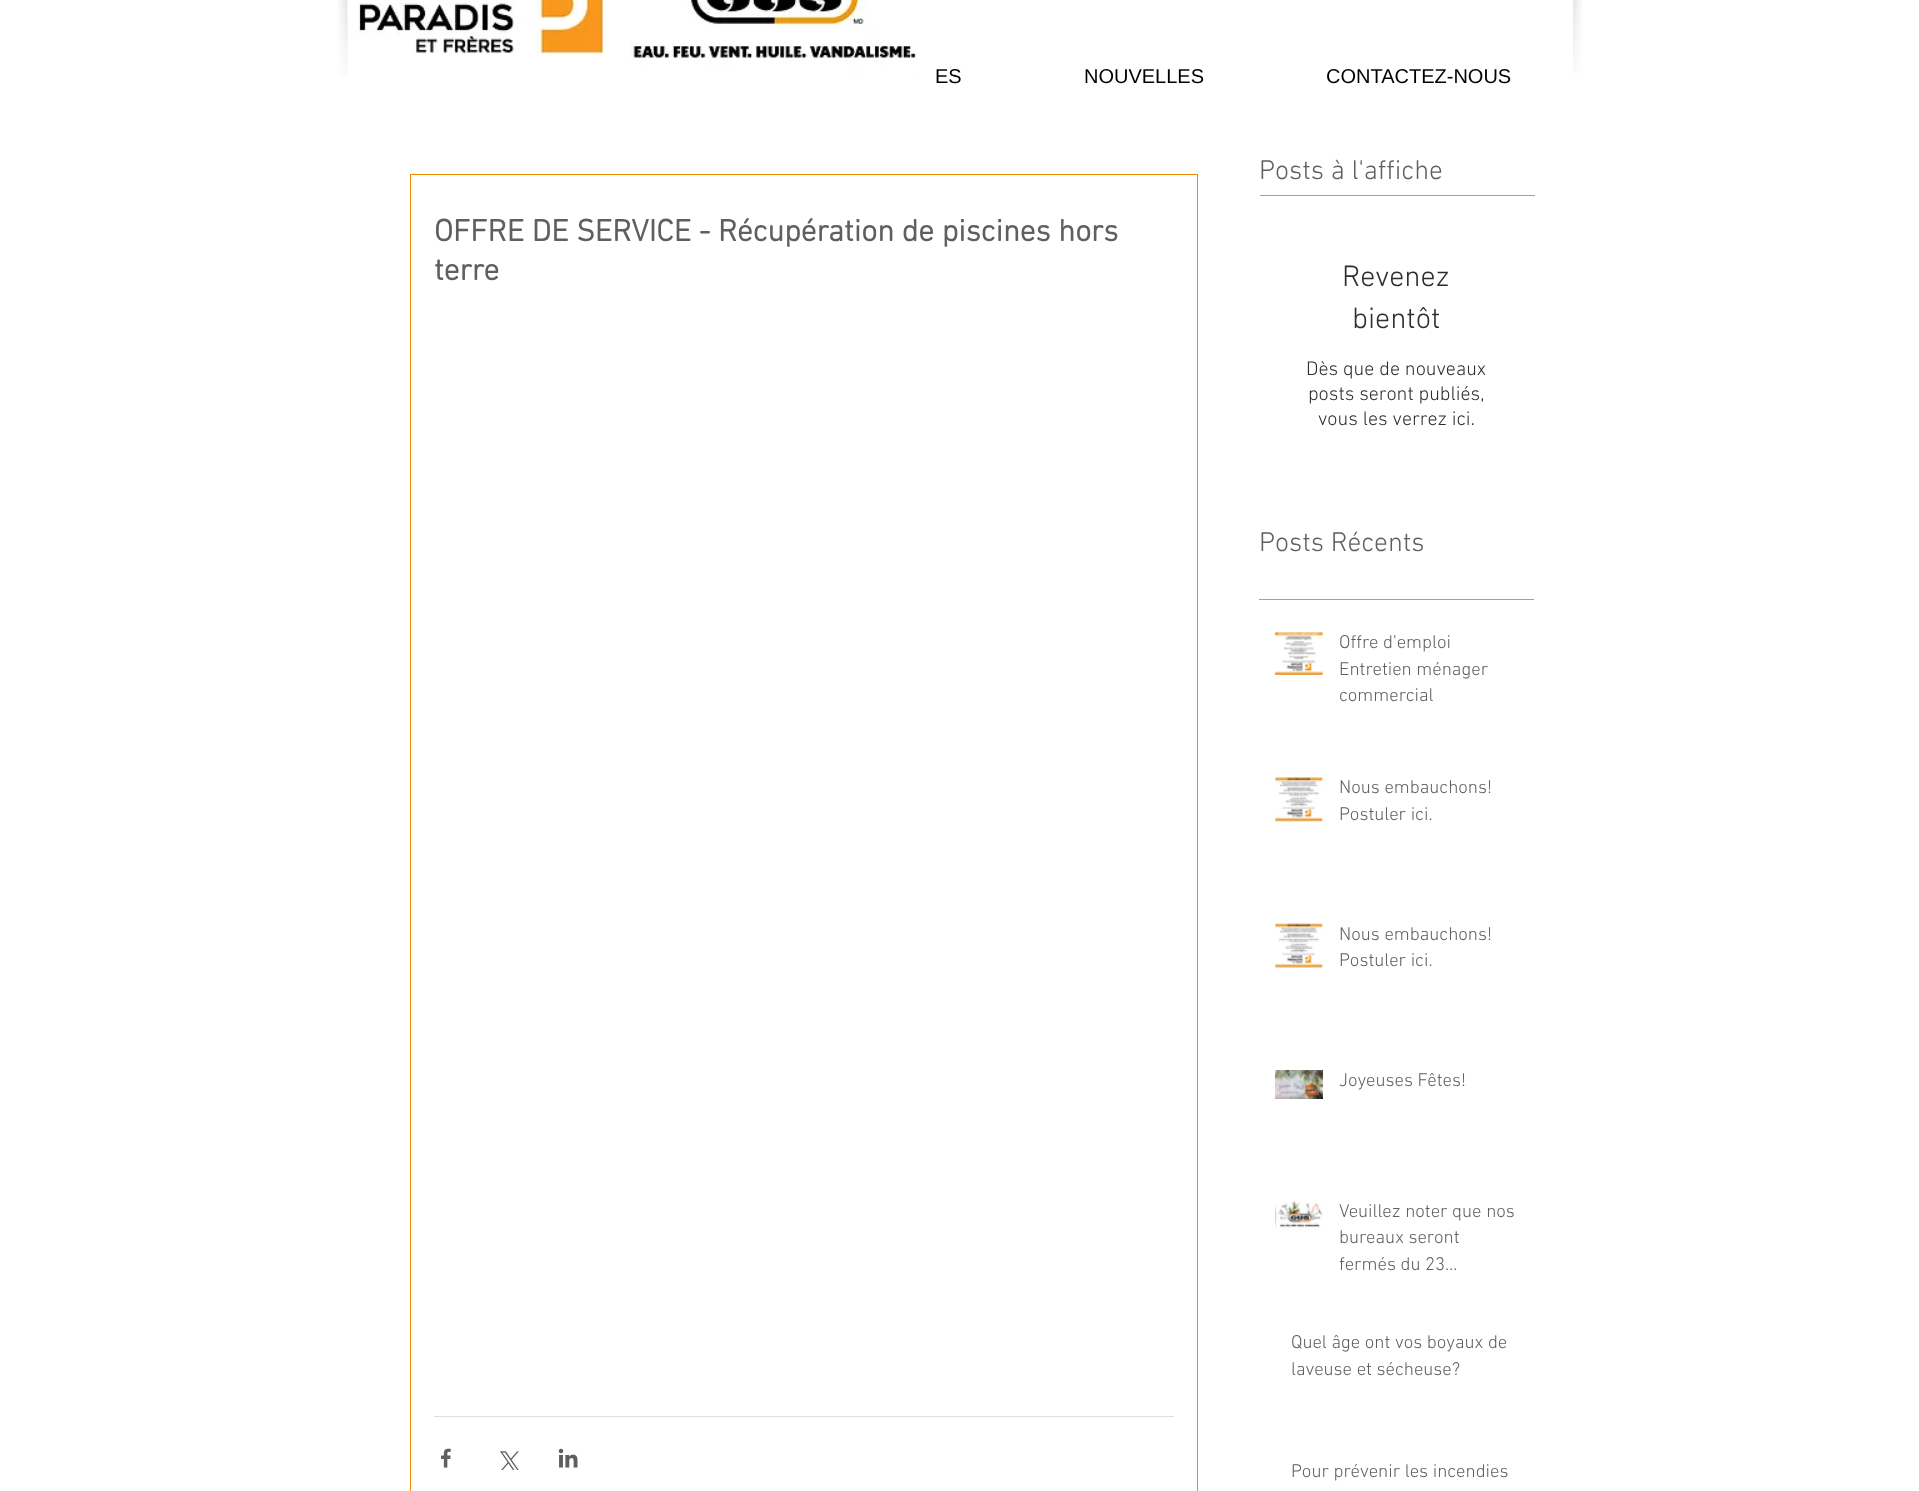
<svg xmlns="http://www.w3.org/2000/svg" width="1919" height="1491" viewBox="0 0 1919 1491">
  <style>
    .t1 { font: 20px Liberation Sans; fill: #000; }
    .t2 { font: 300 27.5px 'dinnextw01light'; fill: #605e5e; }
    .t3 { font: bold 31.25px 'dinnextw01light'; fill: #605e5e; }
    .t4 { font: 300 30px 'dinnextw01light'; fill: #2f2e2e; }
    .t5 { font: 300 20px 'dinnextw01light'; fill: #2f2e2e; }
    .t6 { font: 300 18.75px 'dinnextw01light'; fill: #605e5e; }
  </style>
  <rect width="100%" height="100%" fill="#fff"/>
  <image x="338" y="0" width="10" height="77" href="images/1.png"/>
  <image x="1573" y="0" width="9" height="73" href="images/2.png"/>
  <image x="347" y="0" width="262" height="26" href="images/3.png"/>
  <image x="347" y="0" width="262" height="19" href="images/4.png"/>
  <image x="608" y="0" width="1" height="6" href="images/5.png"/>
  <text x="935" y="83" class="t1">ES</text>
  <text x="1084" y="83" class="t1">NOUVELLES</text>
  <text x="1326" y="83" class="t1">CONTACTEZ-NOUS</text>
  <image x="347" y="0" width="261" height="75" href="images/6.png"/>
  <image x="621" y="0" width="313" height="75" href="images/7.png"/>
  <text x="1259" y="179" class="t2">Posts à l'affiche</text>
  <rect x="1260" y="195" width="275" height="1" fill="#a0a09f"/>
  <rect x="410.5" y="174.5" width="787" height="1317" fill="none" stroke="#ed8a00"/>
  <text x="434" y="241" class="t3">OFFRE DE SERVICE - Récupération de piscines hors</text>
  <text x="434" y="280" class="t3">terre</text>
  <rect x="434" y="1416" width="740" height="1" fill="#dfdfdf"/>
  <image x="441" y="1448" width="10" height="20" href="images/8.png"/>
  <image x="500" y="1451" width="19" height="19" href="images/9.png"/>
  <image x="558" y="1448" width="20" height="20" href="images/10.png"/>
  <text x="1342" y="286" class="t4">Revenez</text>
  <text x="1352" y="328" class="t4">bientôt</text>
  <text x="1306" y="375" class="t5">Dès que de nouveaux</text>
  <text x="1308" y="400" class="t5">posts seront publiés,</text>
  <text x="1318" y="425" class="t5">vous les verrez ici.</text>
  <text x="1259" y="551" class="t2">Posts Récents</text>
  <rect x="1259" y="599" width="275" height="1" fill="#a0a09f"/>
  <image x="1275" y="632" width="48" height="43" href="images/11.png"/>
  <image x="1275" y="632" width="48" height="43" href="images/12.png"/>
  <text x="1339" y="648" class="t6">Offre d'emploi</text>
  <text x="1339" y="675" class="t6">Entretien ménager</text>
  <text x="1339" y="701" class="t6">commercial</text>
  <image x="1275" y="777" width="48" height="45" href="images/13.png"/>
  <image x="1275" y="777" width="48" height="45" href="images/14.png"/>
  <text x="1339" y="793" class="t6">Nous embauchons!</text>
  <text x="1339" y="820" class="t6">Postuler ici.</text>
  <image x="1275" y="923" width="48" height="45" href="images/15.png"/>
  <image x="1275" y="923" width="48" height="45" href="images/16.png"/>
  <text x="1339" y="940" class="t6">Nous embauchons!</text>
  <text x="1339" y="966" class="t6">Postuler ici.</text>
  <image x="1275" y="1070" width="48" height="29" href="images/17.png"/>
  <text x="1339" y="1086" class="t6">Joyeuses Fêtes!</text>
  <image x="1275" y="1201" width="48" height="29" href="images/18.png"/>
  <image x="1275" y="1201" width="48" height="29" href="images/19.png"/>
  <text x="1339" y="1217" class="t6">Veuillez noter que nos</text>
  <text x="1339" y="1243" class="t6">bureaux seront</text>
  <text x="1339" y="1270" class="t6">fermés du 23…</text>
  <text x="1291" y="1348" class="t6">Quel âge ont vos boyaux de</text>
  <text x="1291" y="1375" class="t6">laveuse et sécheuse?</text>
  <text x="1291" y="1477" class="t6">Pour prévenir les incendies</text>
</svg>
